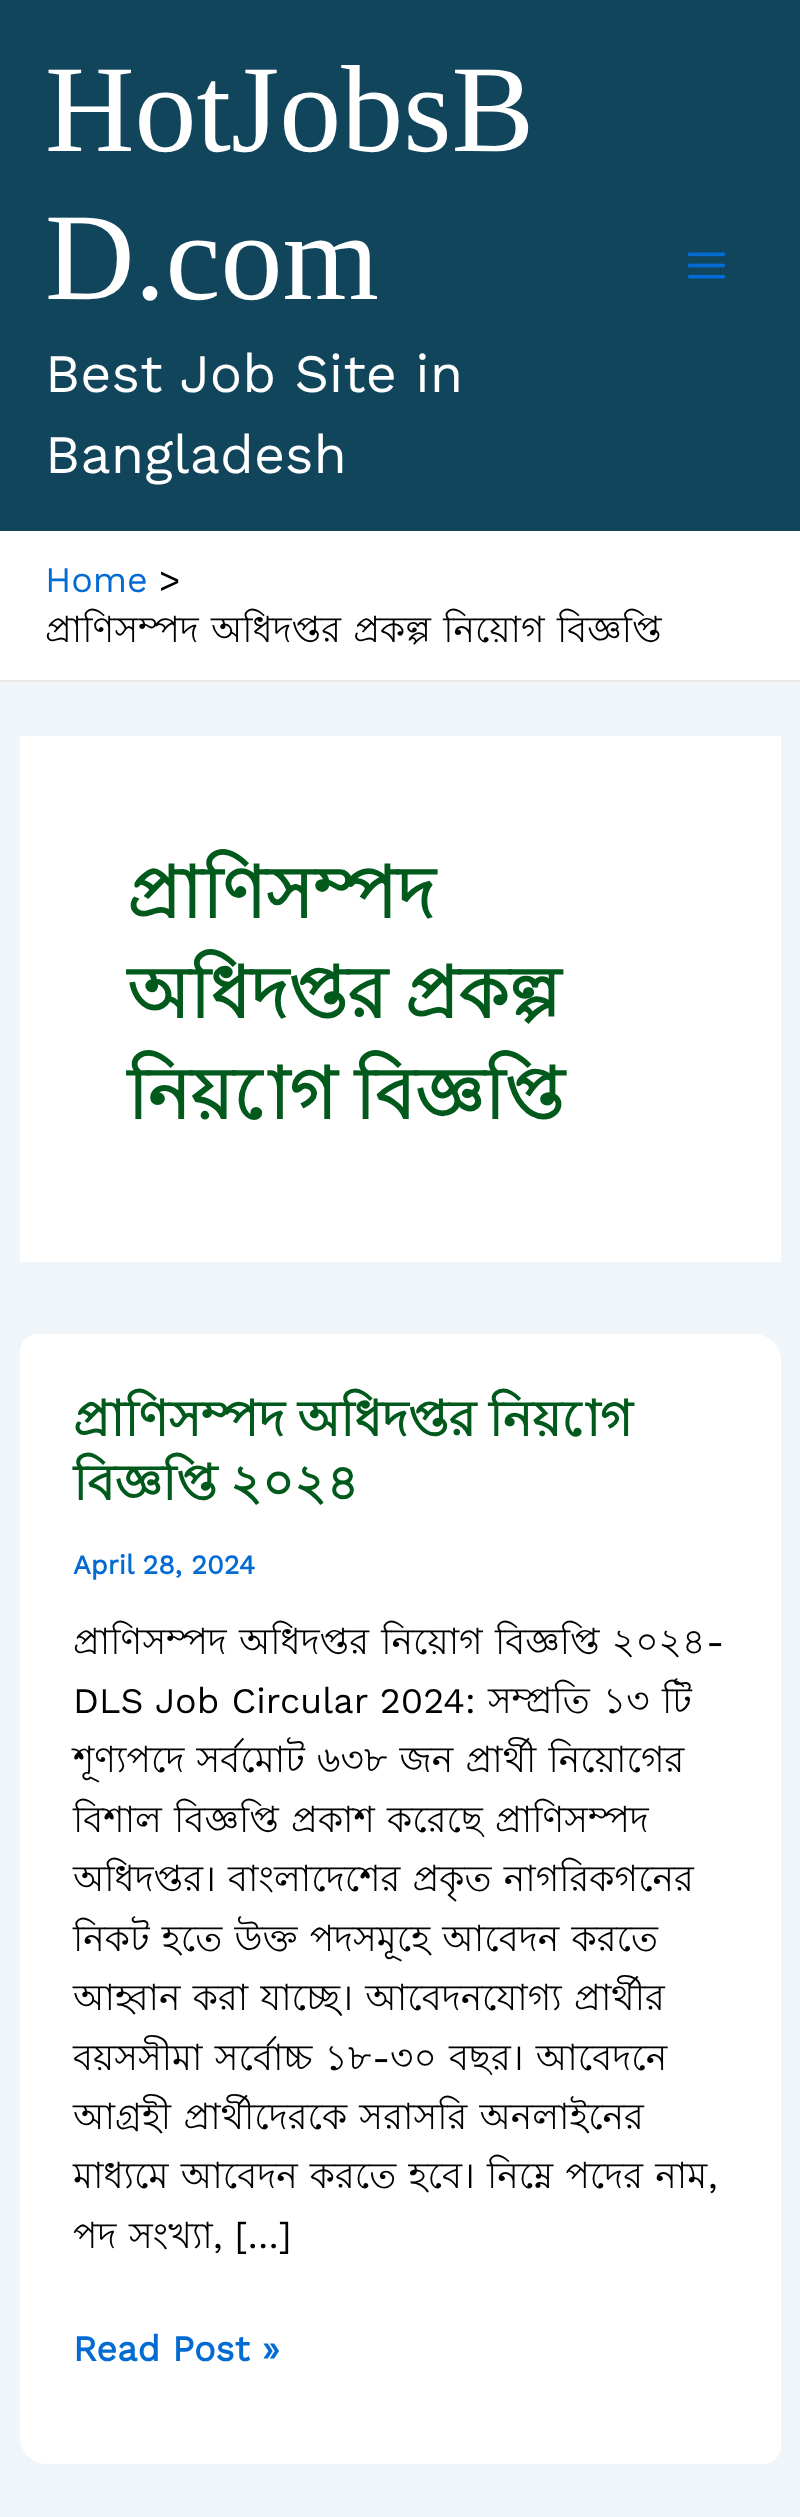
<svg xmlns="http://www.w3.org/2000/svg" width="800" height="2517" viewBox="0 0 800 2517">
  <style>
    .t1 { font: 124px Liberation Serif; fill: #fff; }
    .t2 { font: 54px Work Sans; fill: #fff; }
    .t3 { font: 36px Work Sans; fill: #046bd2; }
    .t4 { font: 36px Work Sans; fill: #000; }
    .t5 { font: 36px Lohit Bengali; fill: #000; }
    .t6 { font: bold 72px Lohit Bengali; fill: #015a1c; }
    .t7 { font: bold 49.5px Lohit Bengali; fill: #015a1c; }
    .t8 { font: bold 27px Work Sans; fill: #046bd2; }
    .t9 { font: bold 36px Work Sans; fill: #046bd2; }
  </style>
  <rect width="100%" height="100%" fill="#f0f5fa"/>
  <rect x="0" y="0" width="800" height="531" fill="#10455c"/>
  <text x="45" y="151" class="t1">HotJobsB</text>
  <text x="45" y="299" class="t1">D.com</text>
  <text x="45" y="392" class="t2">Best Job Site in</text>
  <text x="45" y="473" class="t2">Bangladesh</text>
  <image x="687" y="252" width="39" height="27" href="images/1.png"/>
  <rect x="0" y="531" width="800" height="149" fill="#fff"/>
  <rect x="0" y="680" width="800" height="2" fill="#eaeaea"/>
  <text x="45" y="592" class="t3">Home</text>
  <text x="159" y="592" class="t4">&gt;</text>
  <text x="45" y="642" word-spacing="2.25" class="t5">প্রাণিসম্পদ অধিদপ্তর প্রকল্প নিয়োগ বিজ্ঞপ্তি</text>
  <rect x="20" y="736" width="761" height="526" fill="#fff"/>
  <text x="127" y="918" class="t6">প্রাণিসম্পদ</text>
  <text x="127" y="1018" word-spacing="-2" class="t6">অধিদপ্তর প্রকল্প</text>
  <text x="127" y="1119" word-spacing="-2" class="t6">নিয়োগ বিজ্ঞপ্তি</text>
  <path d="M38 1334H754C769 1334 781 1346 781 1361V2446C781 2456 773 2464 763 2464H47C32 2464 20 2452 20 2437V1352C20 1342 28 1334 38 1334Z" fill="#fff"/>
  <text x="73" y="1436" word-spacing="-1" class="t7">প্রাণিসম্পদ অধিদপ্তর নিয়োগ</text>
  <text x="73" y="1500" word-spacing="-1" class="t7">বিজ্ঞপ্তি ২০২৪</text>
  <text x="73" y="1574" class="t8">April 28, 2024</text>
  <text x="73" y="1654" word-spacing="2.25" class="t5">প্রাণিসম্পদ অধিদপ্তর নিয়োগ বিজ্ঞপ্তি ২০২৪</text>
  <text x="706" y="1654" class="t4">-</text>
  <text x="73" y="1713" class="t4">DLS Job Circular 2024:</text>
  <text x="488" y="1713" class="t5">সম্প্রতি</text>
  <text x="603" y="1713" class="t5">১৩</text>
  <text x="662" y="1713" class="t5">টি</text>
  <text x="73" y="1772" word-spacing="2.25" class="t5">শূণ্যপদে সর্বমোট ৬৩৮ জন প্রার্থী নিয়োগের</text>
  <text x="73" y="1832" word-spacing="2.25" class="t5">বিশাল বিজ্ঞপ্তি প্রকাশ করেছে প্রাণিসম্পদ</text>
  <text x="73" y="1891" word-spacing="2.25" class="t5">অধিদপ্তর। বাংলাদেশের প্রকৃত নাগরিকগনের</text>
  <text x="73" y="1951" word-spacing="2.25" class="t5">নিকট হতে উক্ত পদসমূহে আবেদন করতে</text>
  <text x="73" y="2010" word-spacing="2.25" class="t5">আহ্বান করা যাচ্ছে। আবেদনযোগ্য প্রার্থীর</text>
  <text x="73" y="2070" word-spacing="2.25" class="t5">বয়সসীমা সর্বোচ্চ ১৮</text>
  <text x="372" y="2070" class="t4">-</text>
  <text x="390" y="2070" word-spacing="2.25" class="t5">৩০ বছর। আবেদনে</text>
  <text x="73" y="2129" word-spacing="2.25" class="t5">আগ্রহী প্রার্থীদেরকে সরাসরি অনলাইনের</text>
  <text x="73" y="2188" word-spacing="2.25" class="t5">মাধ্যমে আবেদন করতে হবে। নিম্নে পদের নাম</text>
  <text x="708" y="2188" class="t4">,</text>
  <text x="73" y="2248" class="t5">পদ</text>
  <text x="129" y="2248" class="t5">সংখ্যা</text>
  <text x="213" y="2248" class="t4">, […]</text>
  <text x="73" y="2361" class="t9">Read Post »</text>
</svg>
